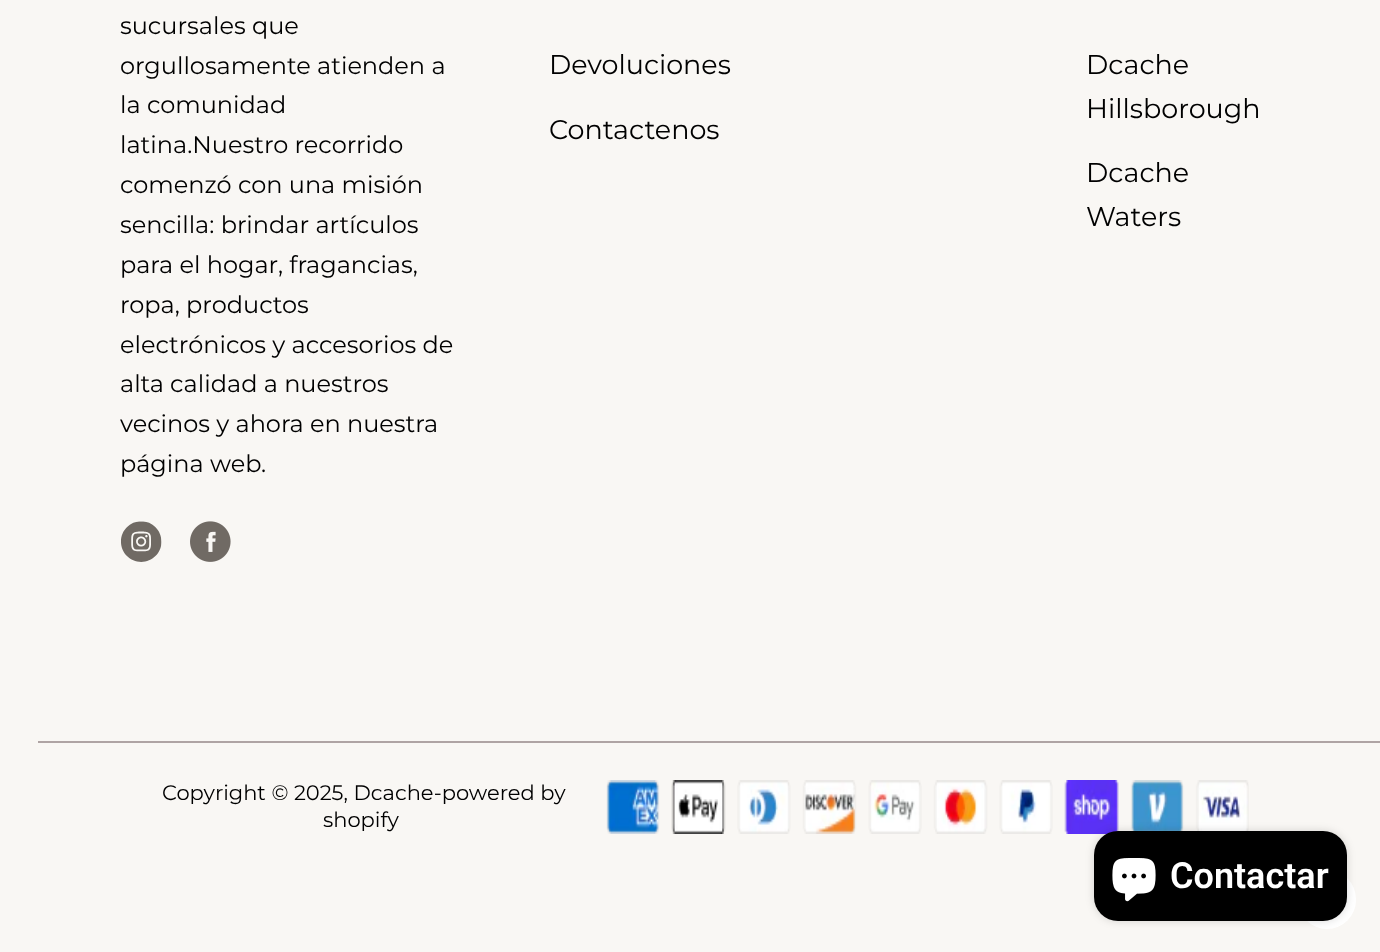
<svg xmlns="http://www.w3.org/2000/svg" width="1380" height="952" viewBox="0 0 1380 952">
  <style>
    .t1 { font: 24px Montserrat; fill: #000; }
    .t2 { font: 27px Montserrat; fill: #000; }
    .t3 { font: 21px Montserrat; fill: #000; }
    .t4 { font: 600 36px Roboto; fill: #fff; }
  </style>
  <rect width="100%" height="100%" fill="#f9f7f4"/>
  <text x="120" y="34" class="t1">sucursales que</text>
  <text x="120" y="74" class="t1">orgullosamente atienden a</text>
  <text x="120" y="113" class="t1">la comunidad</text>
  <text x="120" y="153" class="t1">latina.Nuestro recorrido</text>
  <text x="120" y="193" class="t1">comenzó con una misión</text>
  <text x="120" y="233" class="t1">sencilla: brindar artículos</text>
  <text x="120" y="273" class="t1">para el hogar, fragancias,</text>
  <text x="120" y="313" class="t1">ropa, productos</text>
  <text x="120" y="353" class="t1">electrónicos y accesorios de</text>
  <text x="120" y="392" class="t1">alta calidad a nuestros</text>
  <text x="120" y="432" class="t1">vecinos y ahora en nuestra</text>
  <text x="120" y="472" class="t1">página web.</text>
  <image x="121" y="521" width="41" height="41" href="images/1.png"/>
  <image x="190" y="521" width="41" height="41" href="images/2.png"/>
  <text x="549" y="74" class="t2">Devoluciones</text>
  <text x="549" y="139" class="t2">Contactenos</text>
  <text x="1086" y="74" class="t2">Dcache</text>
  <text x="1086" y="118" class="t2">Hillsborough</text>
  <text x="1086" y="182" class="t2">Dcache</text>
  <text x="1086" y="226" class="t2">Waters</text>
  <rect x="38" y="741" width="1342" height="2" fill="#afa4a4"/>
  <text x="162" y="800" class="t3">Copyright © 2025, Dcache-powered by</text>
  <text x="323" y="827" class="t3">shopify</text>
  <image x="606" y="780" width="643" height="54" href="images/3.png"/>
  <rect x="1298" y="870" width="58" height="59" rx="29" fill="#fff"/>
  <rect x="1094" y="831" width="253" height="90" rx="24" fill="#00000026" filter="blur(4px)"/>
  <rect x="1094" y="831" width="253" height="90" rx="24" fill="#000"/>
  <image x="1112" y="858" width="44" height="44" href="images/4.png"/>
  <text x="1170" y="888" class="t4">Contactar</text>
</svg>
